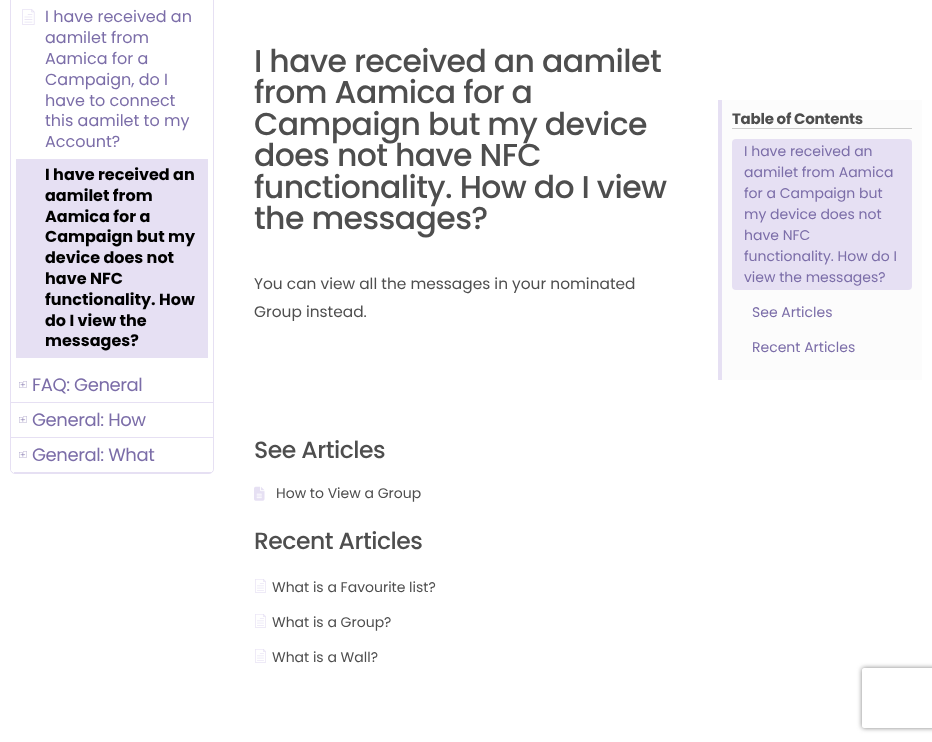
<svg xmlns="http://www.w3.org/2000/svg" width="932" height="742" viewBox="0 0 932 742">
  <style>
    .t1 { font: 16px Poppins; fill: #7b6da8; }
    .t2 { font: bold 16px Poppins; fill: #000; }
    .t3 { font: 18px Poppins; letter-spacing: -0.4px; fill: #7b6da8; }
    .t4 { font: 500 31.5px Poppins; letter-spacing: -0.6px; fill: #4e4e4e; }
    .t5 { font: 15.4px Poppins; fill: #4e4e4e; }
    .t6 { font: 500 23.5px Poppins; letter-spacing: -0.5px; fill: #4e4e4e; }
    .t7 { font: 14px Poppins; fill: #4e4e4e; }
    .t8 { font: bold 15px Poppins; letter-spacing: -0.25px; fill: #4e4e4e; }
    .t9 { font: 14px Poppins; fill: #7b6da8; }
  </style>
  <defs>
    <clipPath id="clip1"><path d="M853 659H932V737H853ZM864 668H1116C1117 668 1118 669 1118 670V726C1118 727 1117 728 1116 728H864C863 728 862 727 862 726V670C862 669 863 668 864 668Z" clip-rule="evenodd"/></clipPath>
  </defs>
  <rect width="100%" height="100%" fill="#fff"/>
  <rect x="10.5" y="-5.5" width="203" height="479" rx="4.5" fill="none" stroke="#e6e0f3"/>
  <image x="22" y="9" width="13" height="16" href="images/1.png"/>
  <text x="45" y="22" class="t1">I have received an</text>
  <text x="45" y="43" class="t1">aamilet from</text>
  <text x="45" y="64" class="t1">Aamica for a</text>
  <text x="45" y="85" class="t1">Campaign, do I</text>
  <text x="45" y="106" class="t1">have to connect</text>
  <text x="45" y="126" class="t1">this aamilet to my</text>
  <text x="45" y="147" class="t1">Account?</text>
  <rect x="16" y="159" width="192" height="199" fill="#e6e0f3"/>
  <text x="45" y="180" class="t2">I have received an</text>
  <text x="45" y="201" class="t2">aamilet from</text>
  <text x="45" y="222" class="t2">Aamica for a</text>
  <text x="45" y="242" class="t2">Campaign but my</text>
  <text x="45" y="263" class="t2">device does not</text>
  <text x="45" y="284" class="t2">have NFC</text>
  <text x="45" y="305" class="t2">functionality. How</text>
  <text x="45" y="326" class="t2">do I view the</text>
  <text x="45" y="346" class="t2">messages?</text>
  <rect x="11" y="402" width="202" height="1" fill="#e6e0f3"/>
  <image x="19" y="381" width="8" height="7" href="images/2.png"/>
  <text x="32" y="391" class="t3">FAQ: General</text>
  <rect x="11" y="437" width="202" height="1" fill="#e6e0f3"/>
  <image x="19" y="416" width="8" height="7" href="images/2.png"/>
  <text x="32" y="426" class="t3">General: How</text>
  <path d="M11 438H213V468C213 471 211 473 208 473H16C13 473 11 471 11 468Z" fill="#fff"/>
  <rect x="14" y="472" width="197" height="1" fill="#e6e0f3"/>
  <image x="19" y="451" width="8" height="7" href="images/2.png"/>
  <text x="32" y="461" class="t3">General: What</text>
  <text x="254" y="72" class="t4">I have received an aamilet</text>
  <text x="254" y="103" class="t4">from Aamica for a</text>
  <text x="254" y="135" class="t4">Campaign but my device</text>
  <text x="254" y="166" class="t4">does not have NFC</text>
  <text x="254" y="198" class="t4">functionality. How do I view</text>
  <text x="254" y="229" class="t4">the messages?</text>
  <text x="254" y="289" class="t5">You can view all the messages in your nominated</text>
  <text x="254" y="317" class="t5">Group instead.</text>
  <text x="254" y="458" class="t6">See Articles</text>
  <image x="254" y="486" width="11" height="15" href="images/3.png"/>
  <text x="276" y="498" class="t7">How to View a Group</text>
  <text x="254" y="549" class="t6">Recent Articles</text>
  <image x="255" y="579" width="11" height="14" href="images/4.png"/>
  <text x="272" y="592" class="t7">What is a Favourite list?</text>
  <image x="255" y="614" width="11" height="14" href="images/4.png"/>
  <text x="272" y="627" class="t7">What is a Group?</text>
  <image x="255" y="649" width="11" height="14" href="images/4.png"/>
  <text x="272" y="662" class="t7">What is a Wall?</text>
  <rect x="722" y="100" width="200" height="280" fill="#fcfcfc"/>
  <rect x="718" y="100" width="4" height="280" fill="#e6e0f3"/>
  <rect x="732" y="128" width="180" height="1" fill="#ccc"/>
  <text x="732" y="124" class="t8">Table of Contents</text>
  <rect x="732" y="139" width="180" height="151" rx="4" fill="#e6e0f3"/>
  <text x="744" y="156" class="t9">I have received an</text>
  <text x="744" y="177" class="t9">aamilet from Aamica</text>
  <text x="744" y="198" class="t9">for a Campaign but</text>
  <text x="744" y="219" class="t9">my device does not</text>
  <text x="744" y="240" class="t9">have NFC</text>
  <text x="744" y="261" class="t9">functionality. How do I</text>
  <text x="744" y="282" class="t9">view the messages?</text>
  <text x="752" y="317" class="t9">See Articles</text>
  <text x="752" y="352" class="t9">Recent Articles</text>
  <g clip-path="url(#clip1)">
    <rect x="862" y="668" width="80" height="60" rx="2" fill="#808080" filter="blur(2.5px)"/>
  </g>
</svg>
